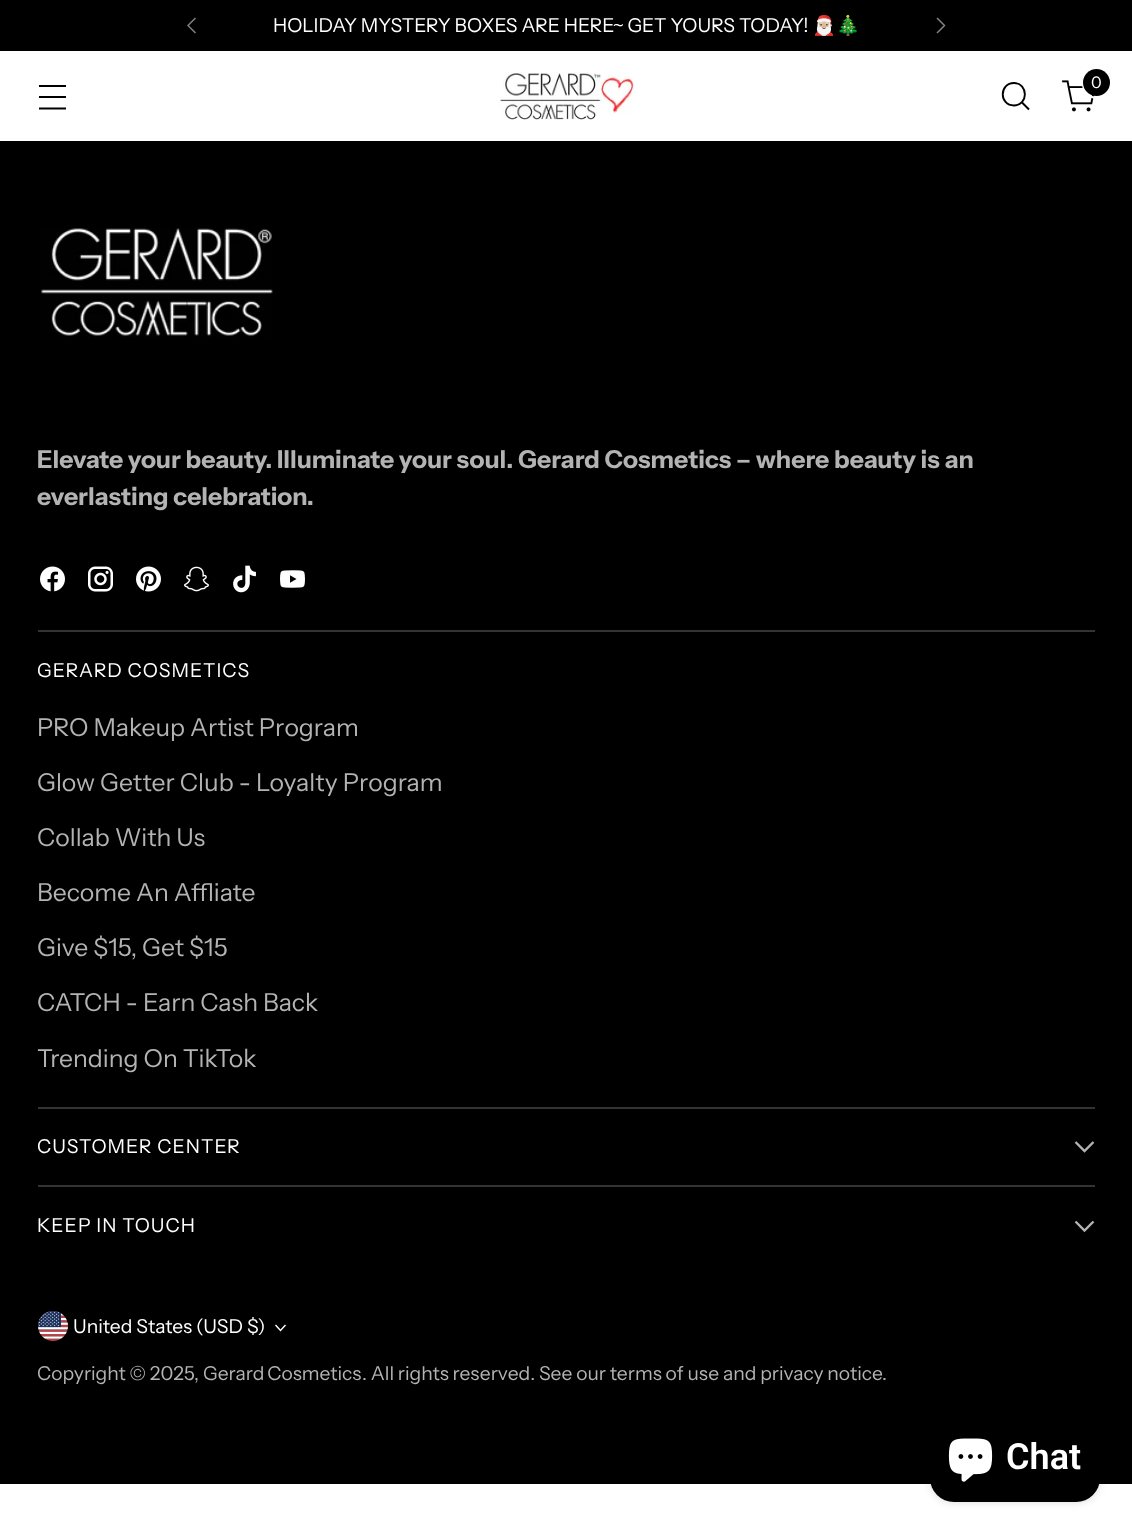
<svg xmlns="http://www.w3.org/2000/svg" width="1132" height="1532" viewBox="0 0 1132 1532">
  <style>
    .t1 { font: 19.25px Instrument Sans; fill: #fff; }
    .t2 { font: 19.25px Noto Color Emoji; fill: #fff; }
    .t3 { font: 16px Instrument Sans; fill: #fff; }
    .t4 { font: bold 24.75px Instrument Sans; fill: #b3b3b3; }
    .t5 { font: 19.25px Instrument Sans; letter-spacing: 1px; fill: #fff; }
    .t6 { font: 24.75px Instrument Sans; fill: #b3b3b3; }
    .t7 { font: 19.25px Instrument Sans; fill: #b3b3b3; }
    .t8 { font: 600 36px Roboto; fill: #fff; }
  </style>
  <rect width="100%" height="100%" fill="#fff"/>
  <rect x="0" y="0" width="1132" height="51" fill="#000"/>
  <text x="273" y="32" class="t1">HOLIDAY MYSTERY BOXES ARE HERE~ GET YOURS TODAY!</text>
  <text x="812" y="32" class="t2">🎅🏼🎄</text>
  <path d="M195.5 18L188 25.5L195.5 33" fill="none" stroke="#808080" stroke-width="1.5"/>
  <path d="M937 33L944.5 25.5L937 18" fill="none" stroke="#808080" stroke-width="1.5"/>
  <image x="500" y="72" width="134" height="48" href="images/1.png"/>
  <path d="M1014 105.5C1028.5 105.5 1028.5 83 1014 83C999 83 999 105.5 1014 105.5Z" fill="none" stroke="#000" stroke-width="1.9" stroke-linecap="round"/>
  <path d="M1022 102.5L1029 109.5" fill="none" stroke="#000" stroke-width="1.9"/>
  <image x="1062" y="80" width="32" height="32" href="images/2.png"/>
  <circle cx="1097.5" cy="83.5" r="14.5" fill="none" stroke="#fff" stroke-width="2"/>
  <circle cx="1096.5" cy="82.5" r="13.5" fill="#000"/>
  <text x="1091" y="88" class="t3">0</text>
  <path d="M39 97H66M39 86H66M39 108.5H66" fill="none" stroke="#000" stroke-width="1.9"/>
  <rect x="0" y="141" width="1132" height="1343" fill="#000"/>
  <rect x="38" y="630" width="1057" height="2" fill="#333"/>
  <image x="41" y="228" width="232" height="110" href="images/3.png"/>
  <text x="37" y="468" class="t4">Elevate your beauty. Illuminate your soul. Gerard Cosmetics – where beauty is an</text>
  <text x="37" y="505" class="t4">everlasting celebration.</text>
  <image x="40" y="566" width="25" height="26" href="images/4.png"/>
  <image x="88" y="566" width="25" height="26" href="images/5.png"/>
  <image x="136" y="566" width="25" height="26" href="images/6.png"/>
  <image x="184" y="566" width="25" height="26" href="images/7.png"/>
  <image x="233" y="565" width="23" height="28" href="images/8.png"/>
  <image x="280" y="570" width="25" height="18" href="images/9.png"/>
  <rect x="38" y="1107" width="1057" height="2" fill="#333"/>
  <text x="37" y="677" class="t5">GERARD COSMETICS</text>
  <text x="37" y="736" class="t6">PRO Makeup Artist Program</text>
  <text x="37" y="791" class="t6">Glow Getter Club - Loyalty Program</text>
  <text x="37" y="846" class="t6">Collab With Us</text>
  <text x="37" y="901" class="t6">Become An Affliate</text>
  <text x="37" y="956" class="t6">Give $15, Get $15</text>
  <text x="37" y="1011" class="t6">CATCH - Earn Cash Back</text>
  <text x="37" y="1067" class="t6">Trending On TikTok</text>
  <rect x="38" y="1185" width="1057" height="2" fill="#333"/>
  <text x="37" y="1153" class="t5">CUSTOMER CENTER</text>
  <path d="M1075.5 1142L1084.5 1151L1093.5 1142" fill="none" stroke="#b3b3b3" stroke-width="2.4"/>
  <text x="37" y="1232" class="t5">KEEP IN TOUCH</text>
  <path d="M1075.5 1221.5L1084.5 1230.5L1093.5 1221.5" fill="none" stroke="#b3b3b3" stroke-width="2.4"/>
  <image x="38" y="1311" width="30" height="30" href="images/10.png"/>
  <text x="73" y="1333" class="t1">United States (USD $)</text>
  <path d="M275.5 1325L280.5 1330.5L285.5 1325" fill="none" stroke="#fff" stroke-width="1.4"/>
  <text x="37" y="1380" class="t7">Copyright © 2025,</text>
  <text x="203" y="1380" word-spacing="-1" class="t7">Gerard Cosmetics</text>
  <text x="362" y="1380" class="t7">. All rights reserved. See our terms of use and privacy notice.</text>
  <rect x="930" y="1412" width="170" height="90" rx="24" fill="#00000026" filter="blur(4px)"/>
  <rect x="930" y="1412" width="170" height="90" rx="24" fill="#000"/>
  <image x="948" y="1438" width="45" height="44" href="images/11.png"/>
  <text x="1006" y="1469" class="t8">Chat</text>
</svg>
